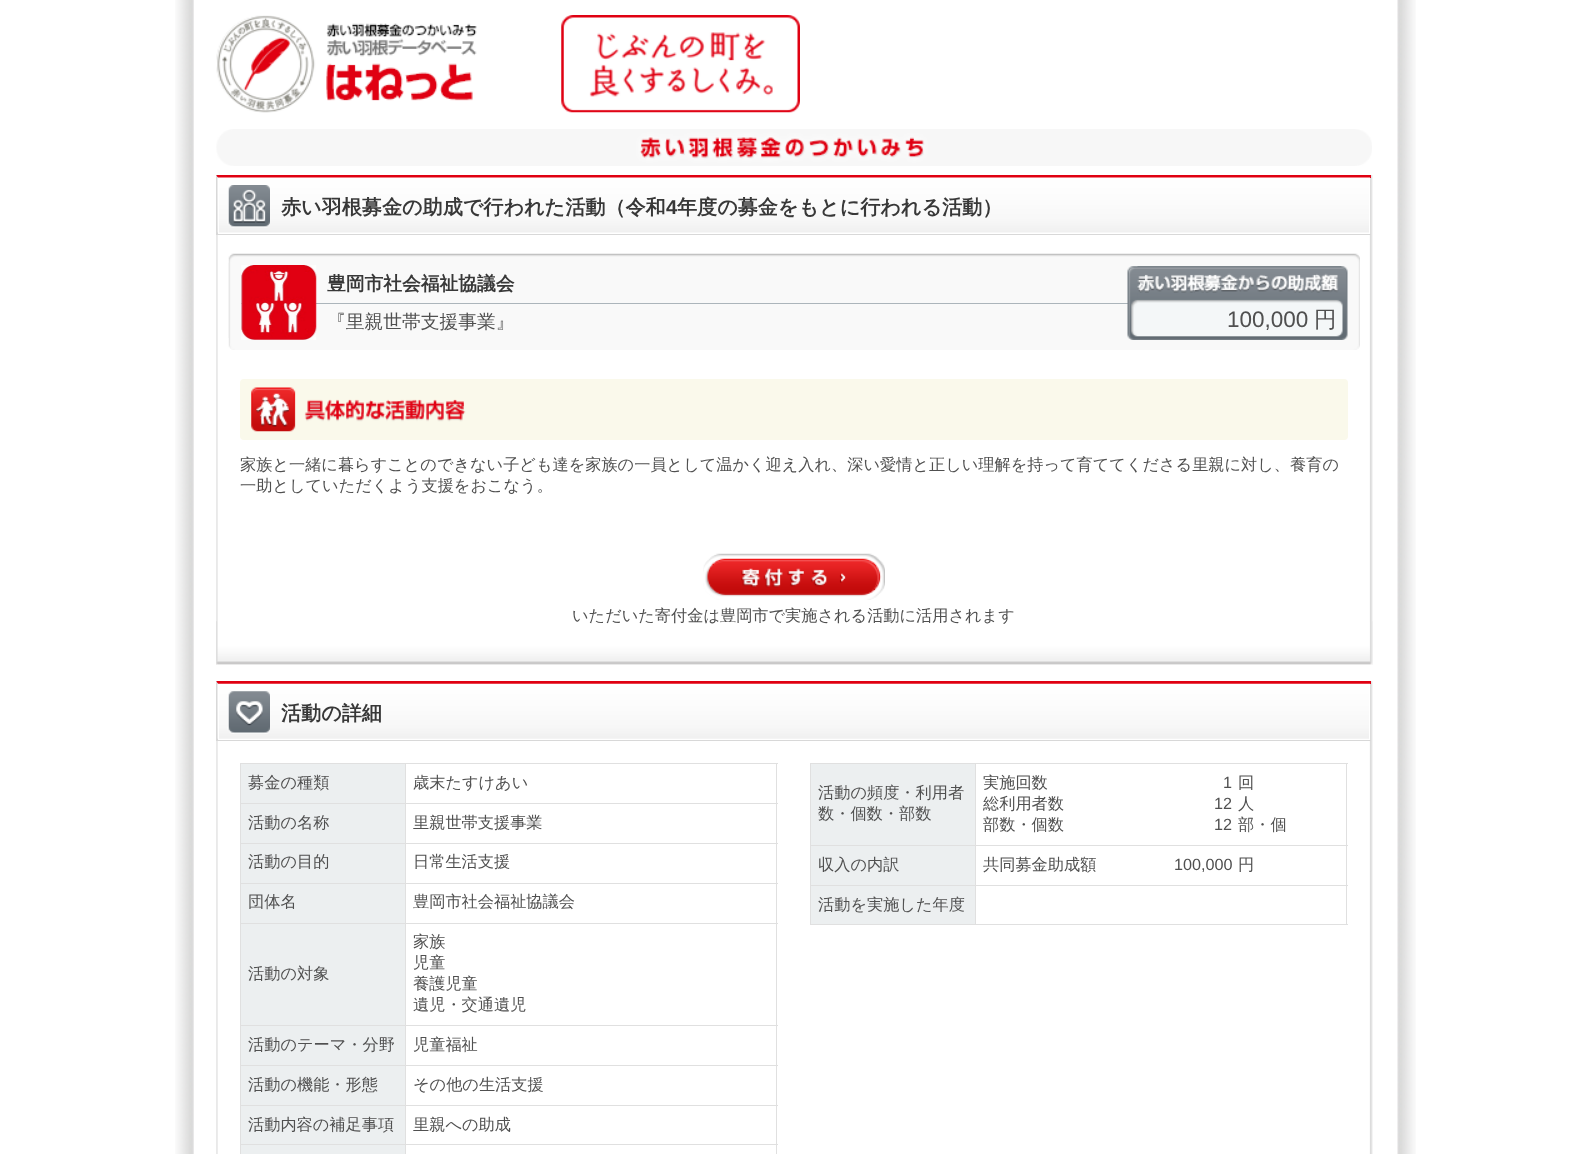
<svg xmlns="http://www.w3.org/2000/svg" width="1590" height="1154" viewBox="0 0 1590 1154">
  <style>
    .t1 { font: bold 20.1px WenQuanYi Zen Hei; fill: #383838; }
    .t2 { font: bold 20.1px Liberation Sans; fill: #383838; }
    .t3 { font: bold 18.75px WenQuanYi Zen Hei; fill: #383838; }
    .t4 { font: 500 18.75px WenQuanYi Zen Hei; fill: #505050; }
    .t5 { font: 22.5px Liberation Sans; fill: #505050; }
    .t6 { font: 500 22.5px WenQuanYi Zen Hei; fill: #505050; }
    .t7 { font: 500 16.2px WenQuanYi Zen Hei; fill: #505050; }
    .t8 { font: 16.2px Liberation Sans; fill: #505050; }
  </style>
  <rect width="100%" height="100%" fill="#fff"/>
  <image x="175" y="0" width="1241" height="1154" href="images/1.png"/>
  <image x="216" y="15" width="261" height="98" href="images/2.png"/>
  <image x="561" y="15" width="239" height="98" href="images/3.png"/>
  <image x="216" y="129" width="1156" height="37" href="images/4.png"/>
  <image x="216" y="175" width="1157" height="490" href="images/5.png"/>
  <image x="216" y="621" width="1157" height="44" href="images/6.png"/>
  <path d="M216 175H1371V178H218Z" fill="#e00012"/>
  <rect x="216" y="234" width="1155" height="1" fill="#d8d8d8"/>
  <path d="M216 235V175L218 178V234Z" fill="#d8d8d8"/>
  <image x="217" y="177" width="1153" height="56" href="images/7.png"/>
  <rect x="218.5" y="178.5" width="1151" height="55" fill="none" stroke="#fff"/>
  <image x="227" y="185" width="43" height="43" href="images/8.png"/>
  <text x="281" y="214" class="t1">赤い羽根募金の助成で行われた活動（令和</text>
  <text x="666" y="214" class="t2">4</text>
  <text x="677" y="214" class="t1">年度の募金をもとに行われる活動）</text>
  <image x="228" y="262" width="1132" height="88" href="images/9.png"/>
  <image x="228" y="253" width="1132" height="85" href="images/10.png"/>
  <rect x="241" y="303" width="887" height="1" fill="#acb5bb"/>
  <image x="241" y="265" width="76" height="75" href="images/11.png"/>
  <text x="327" y="290" class="t3">豊岡市社会福祉協議会</text>
  <text x="327" y="328" class="t4">『里親世帯支援事業』</text>
  <image x="1127" y="266" width="215" height="74" href="images/12.png"/>
  <image x="1137" y="266" width="211" height="74" href="images/13.png"/>
  <image x="1137" y="273" width="202" height="20" href="images/14.png"/>
  <text x="1227" y="327" class="t5">100,000</text>
  <text x="1314" y="327" class="t6">円</text>
  <rect x="240" y="379" width="1108" height="61" rx="4" fill="#faf9eb"/>
  <image x="251" y="387" width="215" height="45" href="images/15.png"/>
  <text x="240" y="470" class="t7">家族と一緒に暮らすことのできない子ども達を家族の一員として温かく迎え入れ、深い愛情と正しい理解を持って育ててくださる里親に対し、養育の</text>
  <text x="240" y="491" class="t7">一助としていただくよう支援をおこなう。</text>
  <image x="703" y="553" width="182" height="47" href="images/16.png"/>
  <text x="572" y="621" class="t7">いただいた寄付金は豊岡市で実施される活動に活用されます</text>
  <image x="216" y="681" width="1157" height="473" href="images/17.png"/>
  <path d="M216 681H1371V684H218Z" fill="#e00012"/>
  <rect x="216" y="740" width="1155" height="1" fill="#d8d8d8"/>
  <path d="M216 741V681L218 684V740Z" fill="#d8d8d8"/>
  <image x="217" y="683" width="1153" height="56" href="images/18.png"/>
  <rect x="218.5" y="684.5" width="1151" height="55" fill="none" stroke="#fff"/>
  <image x="227" y="691" width="43" height="43" href="images/19.png"/>
  <text x="281" y="720" class="t1">活動の詳細</text>
  <rect x="240" y="763" width="538" height="1" fill="#e0e0e0"/>
  <rect x="776" y="763" width="1" height="391" fill="#e0e0e0"/>
  <rect x="240" y="763" width="1" height="391" fill="#e0e0e0"/>
  <rect x="241" y="764" width="164" height="39" fill="#eceff0"/>
  <rect x="405" y="1144" width="1" height="10" fill="#e0e0e0"/>
  <rect x="405" y="1144" width="373" height="1" fill="#e0e0e0"/>
  <rect x="405" y="1105" width="1" height="40" fill="#e0e0e0"/>
  <rect x="405" y="1105" width="373" height="1" fill="#e0e0e0"/>
  <rect x="405" y="1065" width="1" height="41" fill="#e0e0e0"/>
  <rect x="405" y="1065" width="373" height="1" fill="#e0e0e0"/>
  <rect x="405" y="1025" width="1" height="41" fill="#e0e0e0"/>
  <rect x="405" y="1025" width="373" height="1" fill="#e0e0e0"/>
  <rect x="405" y="923" width="1" height="103" fill="#e0e0e0"/>
  <rect x="405" y="923" width="373" height="1" fill="#e0e0e0"/>
  <rect x="405" y="883" width="1" height="41" fill="#e0e0e0"/>
  <rect x="405" y="883" width="373" height="1" fill="#e0e0e0"/>
  <rect x="405" y="843" width="1" height="41" fill="#e0e0e0"/>
  <rect x="405" y="843" width="373" height="1" fill="#e0e0e0"/>
  <rect x="405" y="803" width="1" height="41" fill="#e0e0e0"/>
  <rect x="405" y="803" width="373" height="1" fill="#e0e0e0"/>
  <rect x="405" y="763" width="1" height="41" fill="#e0e0e0"/>
  <rect x="240" y="803" width="166" height="1" fill="#e0e0e0"/>
  <text x="248" y="788" class="t7">募金の種類</text>
  <text x="413" y="788" class="t7">歳末たすけあい</text>
  <rect x="241" y="804" width="164" height="39" fill="#eceff0"/>
  <rect x="240" y="843" width="166" height="1" fill="#e0e0e0"/>
  <text x="248" y="828" class="t7">活動の名称</text>
  <text x="413" y="828" class="t7">里親世帯支援事業</text>
  <rect x="241" y="844" width="164" height="39" fill="#eceff0"/>
  <rect x="240" y="883" width="166" height="1" fill="#e0e0e0"/>
  <text x="248" y="867" class="t7">活動の目的</text>
  <text x="413" y="867" class="t7">日常生活支援</text>
  <rect x="241" y="884" width="164" height="39" fill="#eceff0"/>
  <rect x="240" y="923" width="166" height="1" fill="#e0e0e0"/>
  <text x="248" y="907" class="t7">団体名</text>
  <text x="413" y="907" class="t7">豊岡市社会福祉協議会</text>
  <rect x="241" y="924" width="164" height="101" fill="#eceff0"/>
  <rect x="240" y="1025" width="166" height="1" fill="#e0e0e0"/>
  <text x="248" y="979" class="t7">活動の対象</text>
  <text x="413" y="947" class="t7">家族</text>
  <text x="413" y="968" class="t7">児童</text>
  <text x="413" y="989" class="t7">養護児童</text>
  <text x="413" y="1010" class="t7">遺児・交通遺児</text>
  <rect x="241" y="1026" width="164" height="39" fill="#eceff0"/>
  <rect x="240" y="1065" width="166" height="1" fill="#e0e0e0"/>
  <text x="248" y="1050" class="t7">活動のテーマ・分野</text>
  <text x="413" y="1050" class="t7">児童福祉</text>
  <rect x="241" y="1066" width="164" height="39" fill="#eceff0"/>
  <rect x="240" y="1105" width="166" height="1" fill="#e0e0e0"/>
  <text x="248" y="1090" class="t7">活動の機能・形態</text>
  <text x="413" y="1090" class="t7">その他の生活支援</text>
  <rect x="241" y="1106" width="164" height="38" fill="#eceff0"/>
  <rect x="240" y="1144" width="166" height="1" fill="#e0e0e0"/>
  <text x="248" y="1130" class="t7">活動内容の補足事項</text>
  <text x="413" y="1130" class="t7">里親への助成</text>
  <rect x="241" y="1145" width="164" height="9" fill="#eceff0"/>
  <rect x="810" y="763" width="538" height="1" fill="#e0e0e0"/>
  <rect x="1346" y="763" width="1" height="162" fill="#e0e0e0"/>
  <rect x="810" y="924" width="538" height="1" fill="#e0e0e0"/>
  <rect x="810" y="763" width="1" height="162" fill="#e0e0e0"/>
  <rect x="811" y="764" width="164" height="81" fill="#eceff0"/>
  <rect x="975" y="885" width="1" height="40" fill="#e0e0e0"/>
  <rect x="975" y="885" width="373" height="1" fill="#e0e0e0"/>
  <rect x="975" y="845" width="1" height="41" fill="#e0e0e0"/>
  <rect x="975" y="845" width="373" height="1" fill="#e0e0e0"/>
  <rect x="975" y="763" width="1" height="83" fill="#e0e0e0"/>
  <rect x="810" y="845" width="166" height="1" fill="#e0e0e0"/>
  <text x="818" y="798" class="t7">活動の頻度・利用者</text>
  <text x="818" y="819" class="t7">数・個数・部数</text>
  <text x="983" y="788" class="t7">実施回数</text>
  <text x="1223" y="788" class="t8">1</text>
  <text x="1238" y="788" class="t7">回</text>
  <text x="983" y="809" class="t7">総利用者数</text>
  <text x="1214" y="809" class="t8">12</text>
  <text x="1238" y="809" class="t7">人</text>
  <text x="983" y="830" class="t7">部数・個数</text>
  <text x="1214" y="830" class="t8">12</text>
  <text x="1238" y="830" class="t7">部・個</text>
  <rect x="811" y="846" width="164" height="39" fill="#eceff0"/>
  <rect x="810" y="885" width="166" height="1" fill="#e0e0e0"/>
  <text x="818" y="870" class="t7">収入の内訳</text>
  <text x="983" y="870" class="t7">共同募金助成額</text>
  <text x="1174" y="870" class="t8">100,000</text>
  <text x="1238" y="870" class="t7">円</text>
  <rect x="811" y="886" width="164" height="38" fill="#eceff0"/>
  <text x="818" y="910" class="t7">活動を実施した年度</text>
</svg>
